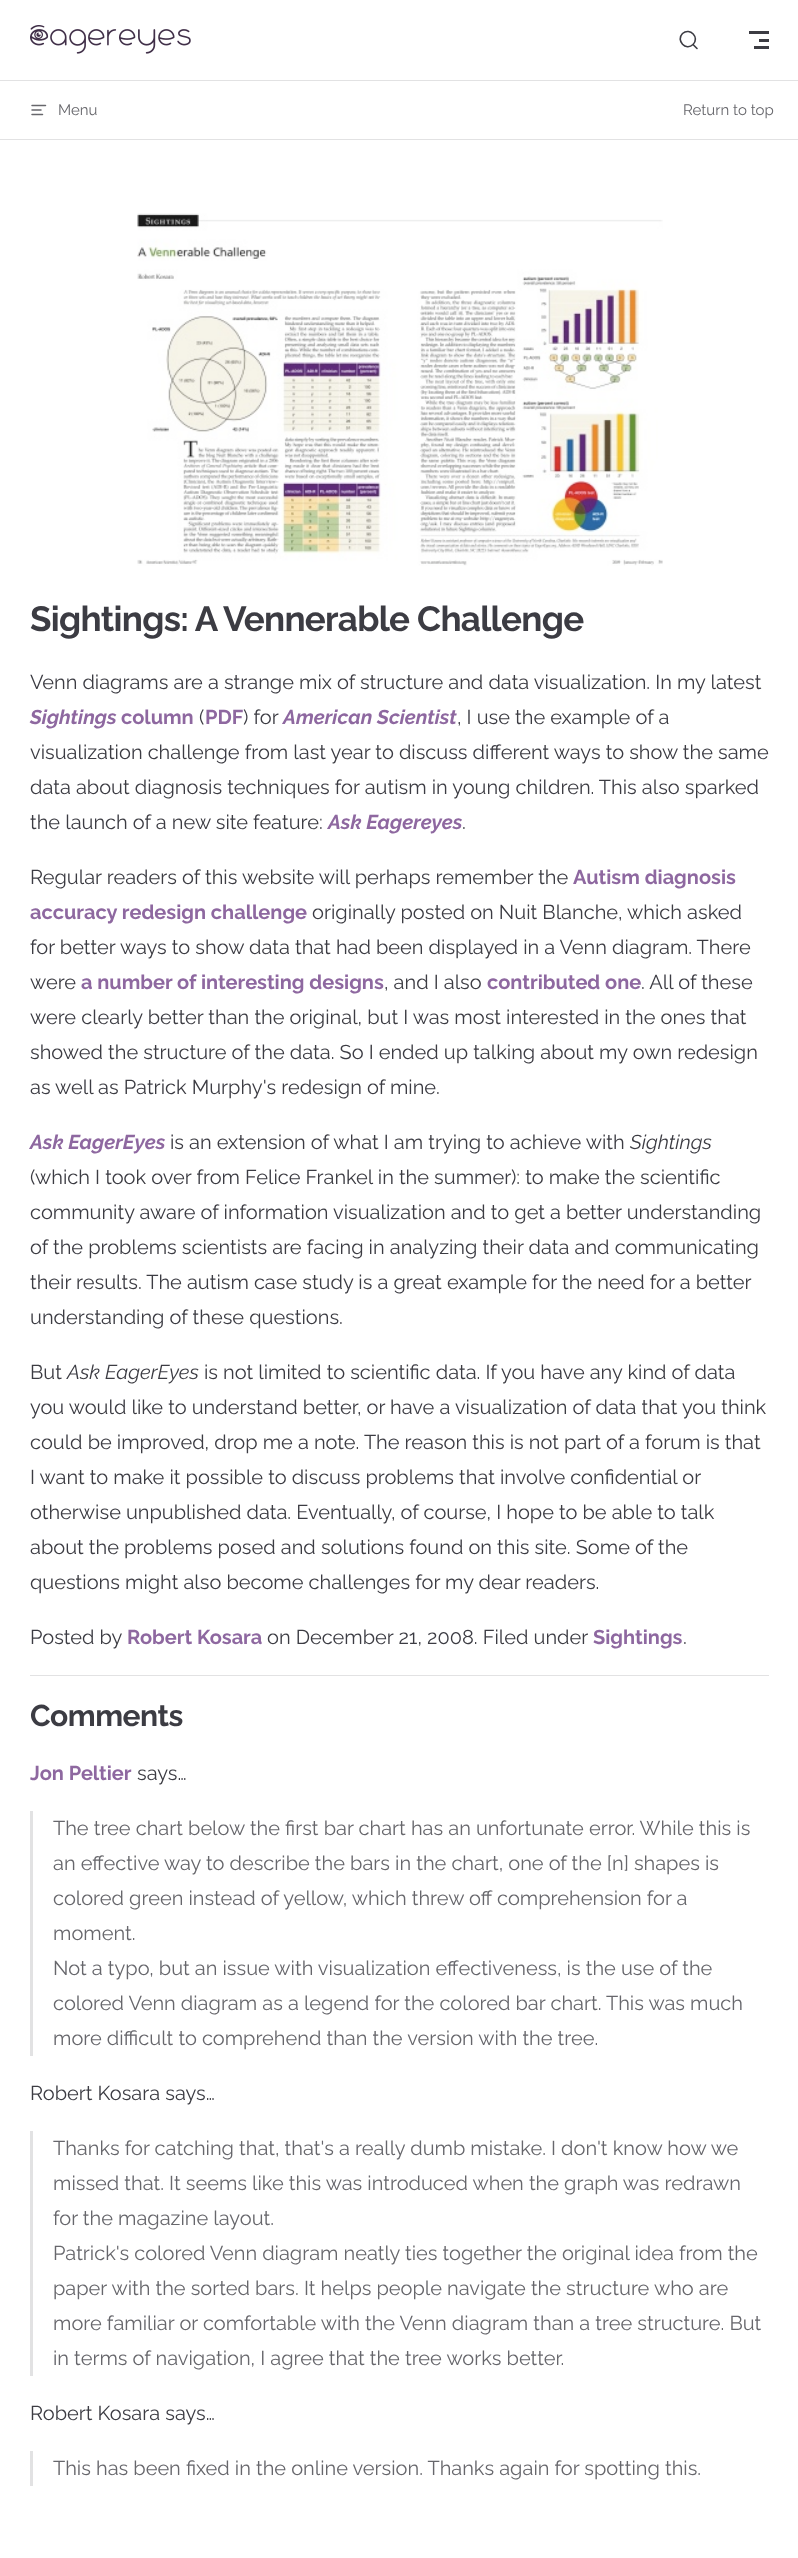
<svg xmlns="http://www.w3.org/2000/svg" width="798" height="2558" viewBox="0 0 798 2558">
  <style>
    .t1 { font: 15px Raleway; fill: #67676c; }
    .t2 { font: bold 35px Raleway; letter-spacing: -0.7px; fill: #3c3c43; }
    .t3 { font: 20px Raleway; fill: #3c3c43; }
    .t4 { font: italic bold 20px Raleway; fill: #8e68a0; }
    .t5 { font: bold 20px Raleway; fill: #8e68a0; }
    .t6 { font: italic 20px Raleway; fill: #3c3c43; }
    .t7 { font: bold 30px Raleway; letter-spacing: -0.5px; fill: #3c3c43; }
    .t8 { font: 20px Raleway; fill: #67676c; }
  </style>
  <rect width="100%" height="100%" fill="#fff"/>
  <image x="30" y="25" width="161" height="29" href="images/1.png"/>
  <path d="M693 44.5L697 48.5L693 44.5C686 51.5 675.5 40.5 682.5 33.5C690 27 700 37.5 693 44.5Z" fill="none" stroke="#3c3c43" stroke-width="1.6" stroke-linecap="round" stroke-linejoin="round"/>
  <rect x="749" y="31" width="20" height="3" fill="#3c3c43"/>
  <rect x="759" y="39" width="10" height="3" fill="#3c3c43"/>
  <rect x="754" y="46" width="15" height="3" fill="#3c3c43"/>
  <rect x="0" y="80" width="798" height="1" fill="#e2e2e3"/>
  <rect x="0" y="139" width="798" height="1" fill="#e2e2e3"/>
  <path d="M45.5 105.5H32M41 110H32M42.5 114.5H32" fill="none" stroke="#67676c" stroke-width="1.5" stroke-linecap="round" stroke-linejoin="round"/>
  <text x="58" y="115" class="t1">Menu</text>
  <text x="683" y="115" class="t1">Return to top</text>
  <image x="137" y="213" width="526" height="353" href="images/2.png"/>
  <text x="30" y="631" class="t2">Sightings: A Vennerable Challenge</text>
  <text x="30" y="689" class="t3">Venn diagrams are a strange mix of structure and data visualization. In my latest</text>
  <text x="30" y="724" class="t4">Sightings</text>
  <text x="121" y="724" class="t5">column</text>
  <text x="199" y="724" class="t3">(</text>
  <text x="205" y="724" class="t5">PDF</text>
  <text x="243" y="724" class="t3">) for</text>
  <text x="283" y="724" class="t4">American Scientist</text>
  <text x="457" y="724" class="t3">, I use the example of a</text>
  <text x="30" y="759" class="t3">visualization challenge from last year to discuss different ways to show the same</text>
  <text x="30" y="794" class="t3">data about diagnosis techniques for autism in young children. This also sparked</text>
  <text x="30" y="829" class="t3">the launch of a new site feature:</text>
  <text x="328" y="829" class="t4">Ask Eagereyes</text>
  <text x="462" y="829" class="t3">.</text>
  <text x="30" y="884" class="t3">Regular readers of this website will perhaps remember the</text>
  <text x="573" y="884" class="t5">Autism diagnosis</text>
  <text x="30" y="919" class="t5">accuracy redesign challenge</text>
  <text x="312" y="919" class="t3">originally posted on Nuit Blanche, which asked</text>
  <text x="30" y="954" class="t3">for better ways to show data that had been displayed in a Venn diagram. There</text>
  <text x="30" y="989" class="t3">were</text>
  <text x="81" y="989" class="t5">a number of interesting designs</text>
  <text x="384" y="989" class="t3">, and I also</text>
  <text x="487" y="989" class="t5">contributed one</text>
  <text x="641" y="989" class="t3">. All of these</text>
  <text x="30" y="1024" class="t3">were clearly better than the original, but I was most interested in the ones that</text>
  <text x="30" y="1059" class="t3">showed the structure of the data. So I ended up talking about my own redesign</text>
  <text x="30" y="1094" class="t3">as well as Patrick Murphy's redesign of mine.</text>
  <text x="30" y="1149" class="t4">Ask EagerEyes</text>
  <text x="170" y="1149" class="t3">is an extension of what I am trying to achieve with</text>
  <text x="630" y="1149" class="t6">Sightings</text>
  <text x="30" y="1184" class="t3">(which I took over from Felice Frankel in the summer): to make the scientific</text>
  <text x="30" y="1219" class="t3">community aware of information visualization and to get a better understanding</text>
  <text x="30" y="1254" class="t3">of the problems scientists are facing in analyzing their data and communicating</text>
  <text x="30" y="1289" class="t3">their results. The autism case study is a great example for the need for a better</text>
  <text x="30" y="1324" class="t3">understanding of these questions.</text>
  <text x="30" y="1379" class="t3">But</text>
  <text x="67" y="1379" class="t6">Ask EagerEyes</text>
  <text x="204" y="1379" class="t3">is not limited to scientific data. If you have any kind of data</text>
  <text x="30" y="1414" class="t3">you would like to understand better, or have a visualization of data that you think</text>
  <text x="30" y="1449" class="t3">could be improved, drop me a note. The reason this is not part of a forum is that</text>
  <text x="30" y="1484" class="t3">I want to make it possible to discuss problems that involve confidential or</text>
  <text x="30" y="1519" class="t3">otherwise unpublished data. Eventually, of course, I hope to be able to talk</text>
  <text x="30" y="1554" class="t3">about the problems posed and solutions found on this site. Some of the</text>
  <text x="30" y="1589" class="t3">questions might also become challenges for my dear readers.</text>
  <text x="30" y="1644" class="t3">Posted by</text>
  <text x="127" y="1644" class="t5">Robert Kosara</text>
  <text x="267" y="1644" class="t3">on December 21, 2008. Filed under</text>
  <text x="593" y="1644" class="t5">Sightings</text>
  <text x="683" y="1644" class="t3">.</text>
  <rect x="30" y="1675" width="739" height="1" fill="#e2e2e3"/>
  <text x="30" y="1726" class="t7">Comments</text>
  <text x="30" y="1780" class="t5">Jon Peltier</text>
  <text x="137" y="1780" class="t3">says…</text>
  <rect x="30" y="1811" width="3" height="245" fill="#e2e2e3"/>
  <text x="53" y="1835" class="t8">The tree chart below the first bar chart has an unfortunate error. While this is</text>
  <text x="53" y="1870" class="t8">an effective way to describe the bars in the chart, one of the [n] shapes is</text>
  <text x="53" y="1905" class="t8">colored green instead of yellow, which threw off comprehension for a</text>
  <text x="53" y="1940" class="t8">moment.</text>
  <text x="53" y="1975" class="t8">Not a typo, but an issue with visualization effectiveness, is the use of the</text>
  <text x="53" y="2010" class="t8">colored Venn diagram as a legend for the colored bar chart. This was much</text>
  <text x="53" y="2045" class="t8">more difficult to comprehend than the version with the tree.</text>
  <text x="30" y="2100" class="t3">Robert Kosara says…</text>
  <rect x="30" y="2131" width="3" height="245" fill="#e2e2e3"/>
  <text x="53" y="2155" class="t8">Thanks for catching that, that's a really dumb mistake. I don't know how we</text>
  <text x="53" y="2190" class="t8">missed that. It seems like this was introduced when the graph was redrawn</text>
  <text x="53" y="2225" class="t8">for the magazine layout.</text>
  <text x="53" y="2260" class="t8">Patrick's colored Venn diagram neatly ties together the original idea from the</text>
  <text x="53" y="2295" class="t8">paper with the sorted bars. It helps people navigate the structure who are</text>
  <text x="53" y="2330" class="t8">more familiar or comfortable with the Venn diagram than a tree structure. But</text>
  <text x="53" y="2365" class="t8">in terms of navigation, I agree that the tree works better.</text>
  <text x="30" y="2420" class="t3">Robert Kosara says…</text>
  <rect x="30" y="2451" width="3" height="35" fill="#e2e2e3"/>
  <text x="53" y="2475" class="t8">This has been fixed in the online version. Thanks again for spotting this.</text>
</svg>
